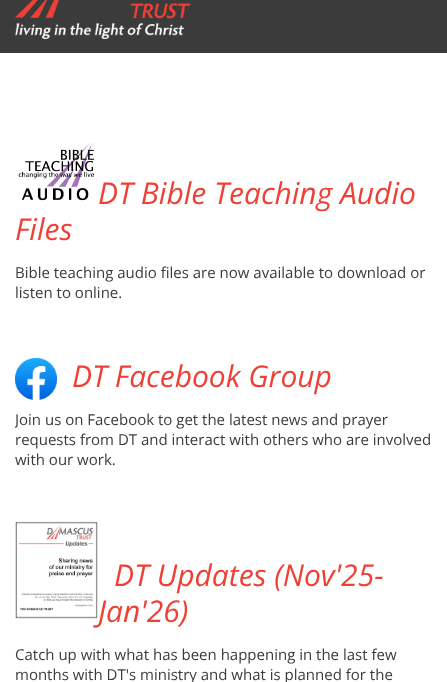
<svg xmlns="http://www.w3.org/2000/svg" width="447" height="682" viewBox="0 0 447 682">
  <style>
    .t1 { font: italic 30px Open Sans; fill: #ef4036; }
    .t2 { font: 15px Open Sans; fill: #3b3b3b; }
  </style>
  <defs>
    <clipPath id="clip1"><rect x="15" y="87" width="417" height="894"/></clipPath>
  </defs>
  <rect width="100%" height="100%" fill="#fff"/>
  <rect x="0" y="0" width="447" height="53" fill="#3b3b3b"/>
  <image x="15" y="0" width="176" height="39" href="images/1.png"/>
  <image x="18" y="143" width="77" height="58" href="images/2.png"/>
  <text x="98" y="204" class="t1">DT Bible Teaching Audio</text>
  <text x="15" y="240" class="t1">Files</text>
  <text x="15" y="278" class="t2">Bible teaching audio files are now available to download or</text>
  <text x="15" y="298" class="t2">listen to online.</text>
  <image x="15" y="358" width="42" height="42" href="images/3.png"/>
  <text x="72" y="387" class="t1">DT Facebook Group</text>
  <g clip-path="url(#clip1)">
    <text x="15" y="425" class="t2">Join us on Facebook to get the latest news and prayer</text>
  </g>
  <text x="15" y="445" class="t2">requests from DT and interact with others who are involved</text>
  <text x="15" y="465" class="t2">with our work.</text>
  <image x="15" y="521" width="83" height="98" href="images/4.png"/>
  <text x="114" y="586" class="t1">DT Updates (Nov'25-</text>
  <text x="98" y="622" class="t1">Jan'26)</text>
  <text x="15" y="660" class="t2">Catch up with what has been happening in the last few</text>
  <text x="15" y="680" class="t2">months with DT's ministry and what is planned for the</text>
</svg>
